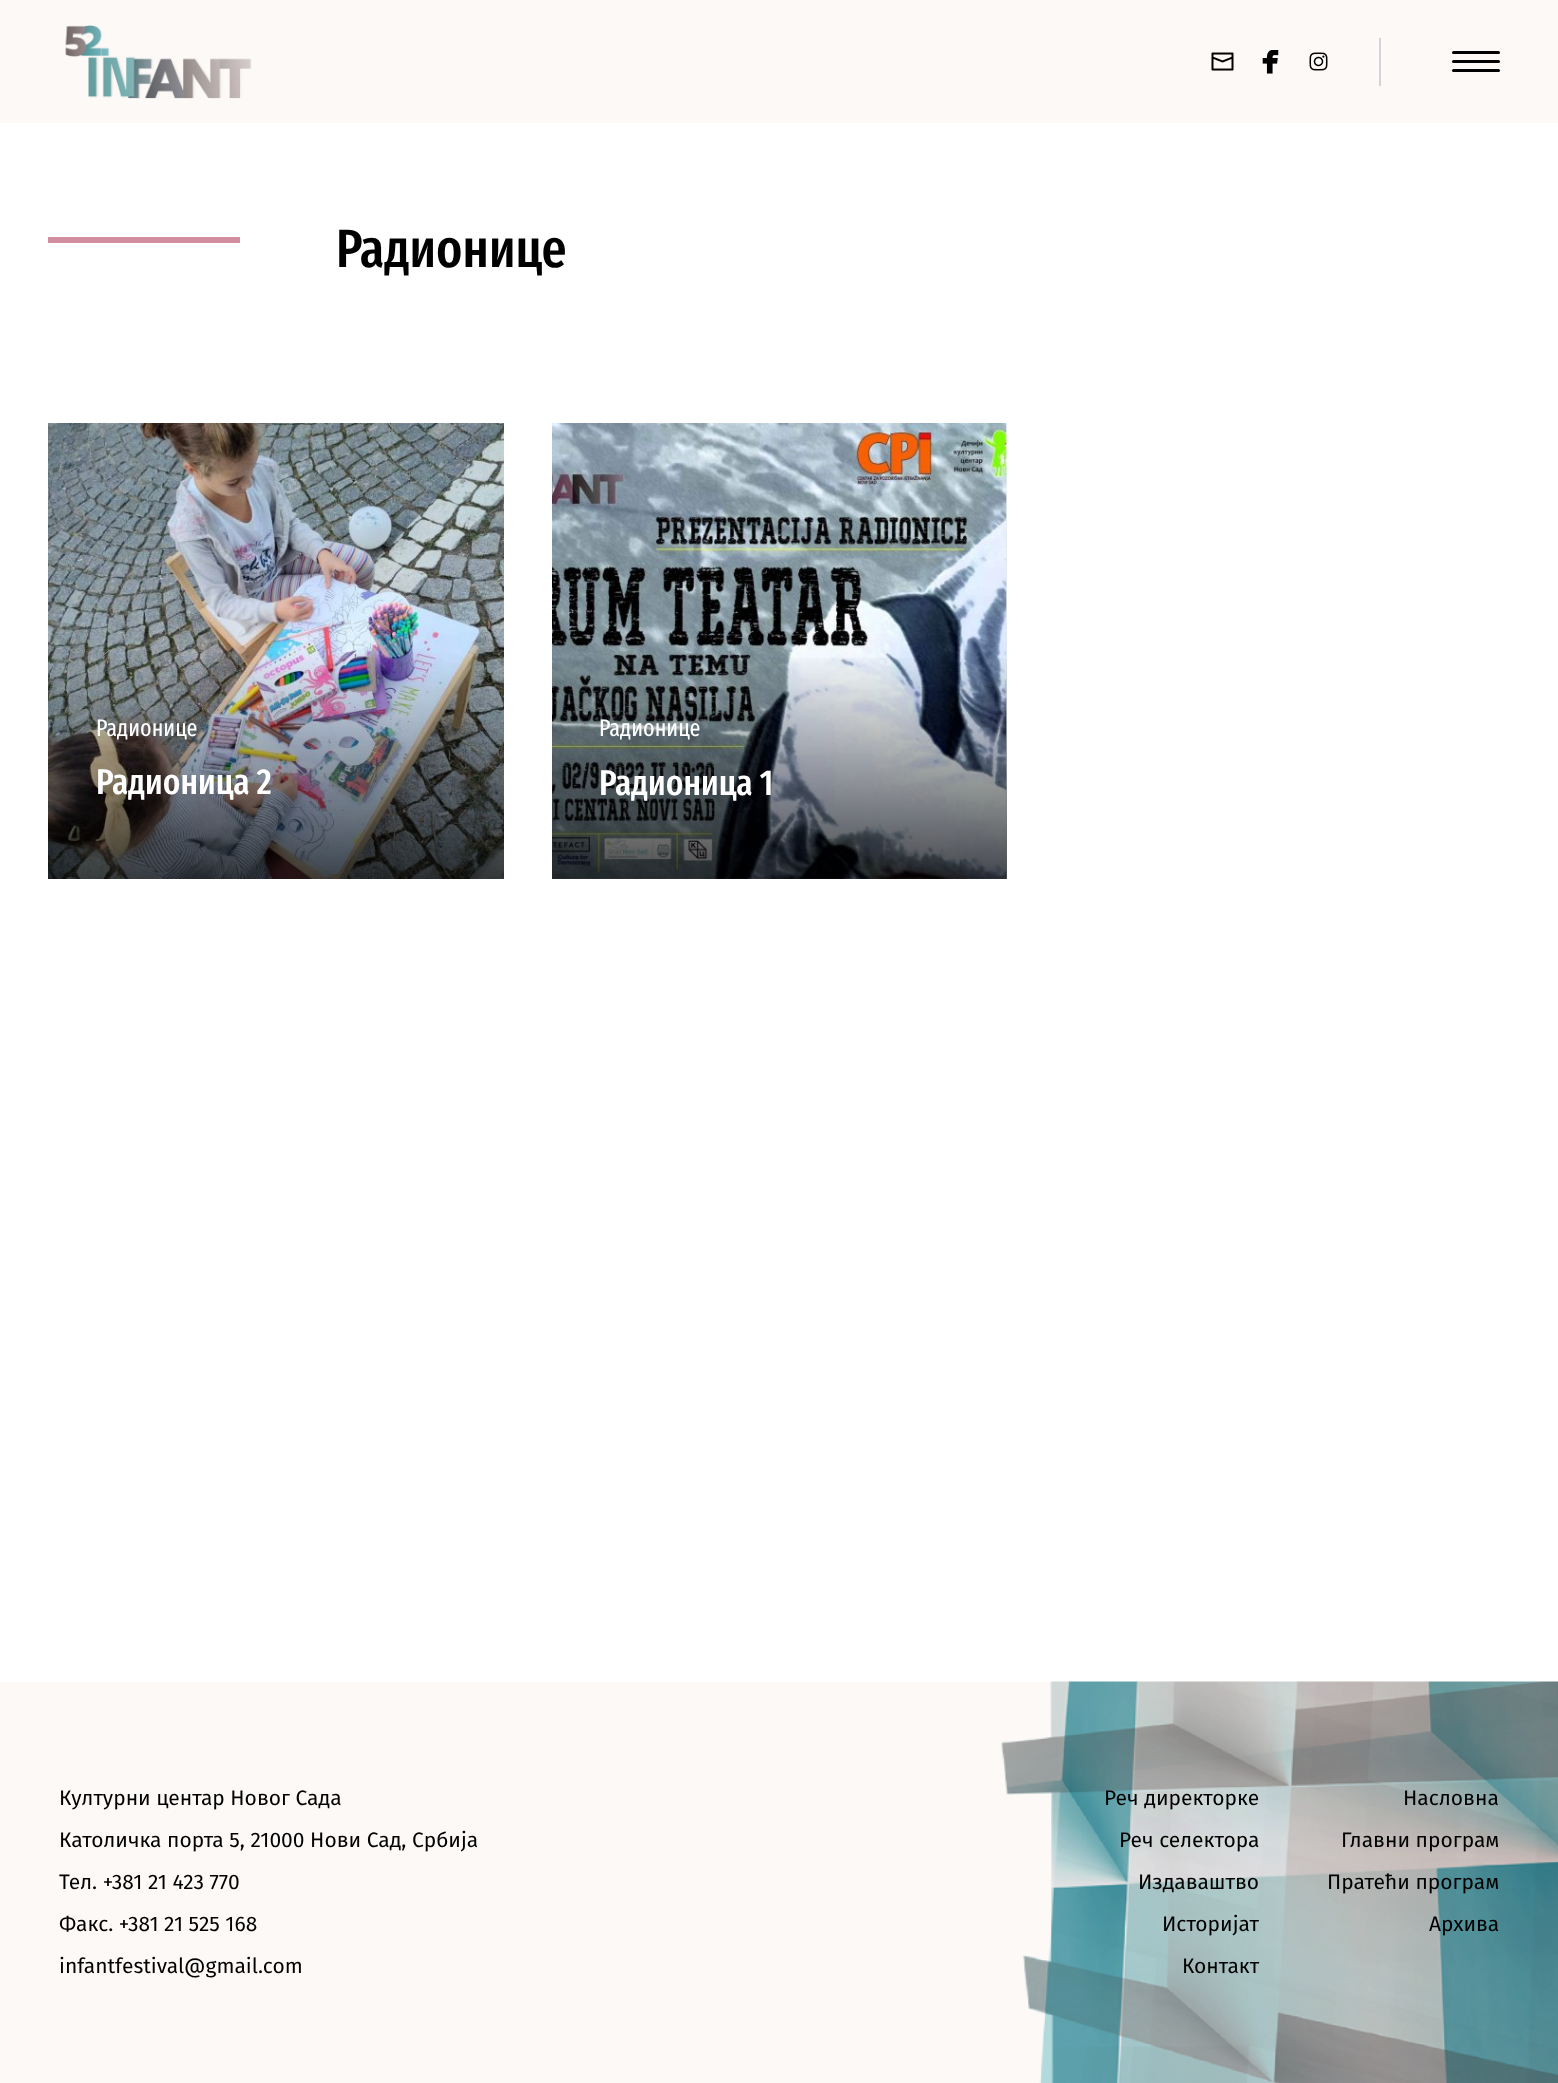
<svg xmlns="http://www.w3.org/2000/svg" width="1558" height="2083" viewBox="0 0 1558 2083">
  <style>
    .t1 { font: 500 54px Fira Sans Extra Condensed; fill: #000; }
    .t2 { font: 24px Fira Sans Extra Condensed; fill: #fff; }
    .t3 { font: 500 36px Fira Sans Extra Condensed; fill: #fff; }
    .t4 { font: 21px Fira Sans; fill: #000; }
  </style>
  <defs>
    <linearGradient id="g1" gradientUnits="userSpaceOnUse" x1="779" y1="879" x2="779" y2="651"><stop offset="0" stop-color="#000" stop-opacity="0.7"/><stop offset="1" stop-color="#000" stop-opacity="0"/></linearGradient>
  </defs>
  <rect width="100%" height="100%" fill="#fff"/>
  <rect x="0" y="0" width="1558" height="123" fill="#fcf9f7"/>
  <image x="65" y="25" width="187" height="74" href="images/1.png"/>
  <image x="1211" y="52" width="23" height="19" href="images/2.png"/>
  <image x="1262" y="50" width="17" height="24" href="images/3.png"/>
  <image x="1309" y="52" width="19" height="19" href="images/4.png"/>
  <rect x="1379" y="38" width="2" height="48" fill="#d1d5db"/>
  <rect x="1452" y="51" width="48" height="3" rx="1.5" fill="#000"/>
  <rect x="1452" y="60" width="48" height="3" rx="1.5" fill="#000"/>
  <rect x="1452" y="69" width="48" height="3" rx="1.5" fill="#000"/>
  <rect x="48" y="237" width="192" height="6" fill="#d28d9e"/>
  <text x="336" y="267" class="t1">Радионице</text>
  <image x="48" y="423" width="456" height="456" href="images/5.png"/>
  <text x="96" y="736" class="t2">Радионице</text>
  <text x="96" y="794" class="t3">Радионица 2</text>
  <image x="1006" y="423" width="1" height="456" href="images/7.png"/>
  <image x="552" y="423" width="455" height="456" href="images/6.png"/>
  <rect x="552" y="658" width="455" height="221" fill="url(#g1)"/>
  <text x="599" y="736" class="t2">Радионице</text>
  <text x="599" y="795" class="t3">Радионица 1</text>
  <rect x="0" y="1682" width="1054" height="401" fill="#fcf9f7"/>
  <image x="1001" y="1681" width="557" height="402" href="images/8.png"/>
  <text x="59" y="1805" class="t4">Културни центар Новог Садa</text>
  <text x="59" y="1847" class="t4">Католичка порта 5, 21000 Нови Сад, Србија</text>
  <text x="59" y="1889" class="t4">Тел. +381 21 423 770</text>
  <text x="59" y="1931" class="t4">Факс. +381 21 525 168</text>
  <text x="59" y="1973" class="t4">infantfestival@gmail.com</text>
  <text x="1104" y="1805" class="t4">Реч директорке</text>
  <text x="1119" y="1847" class="t4">Реч селектора</text>
  <text x="1138" y="1889" class="t4">Издаваштво</text>
  <text x="1162" y="1931" class="t4">Историјат</text>
  <text x="1182" y="1973" class="t4">Контакт</text>
  <text x="1403" y="1805" class="t4">Насловна</text>
  <text x="1341" y="1847" class="t4">Главни програм</text>
  <text x="1327" y="1889" class="t4">Пратећи програм</text>
  <text x="1429" y="1931" class="t4">Архива</text>
</svg>
